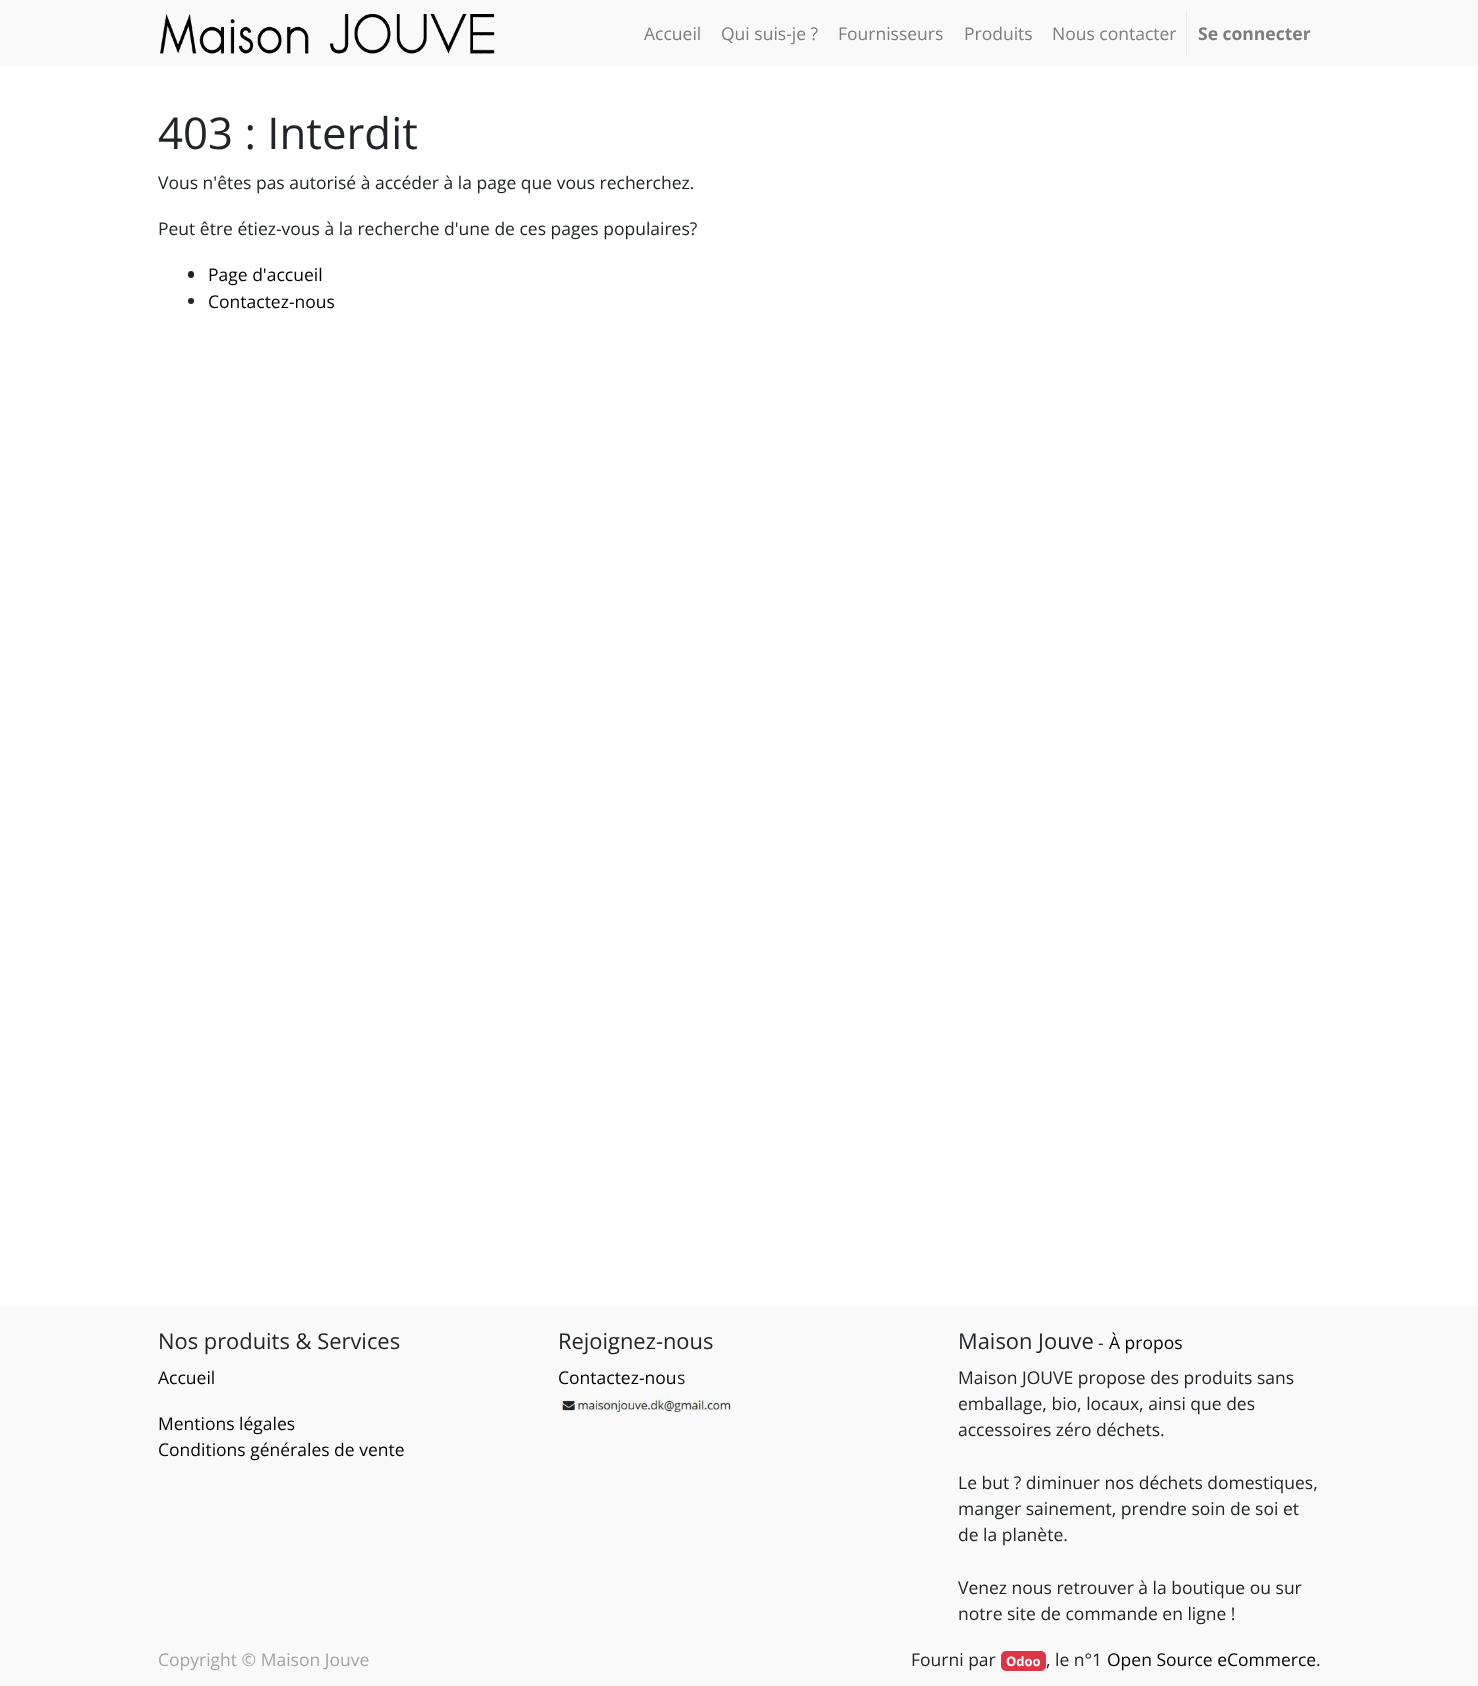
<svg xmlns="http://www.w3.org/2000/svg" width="1478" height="1686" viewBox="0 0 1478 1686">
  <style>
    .t1 { font: 17.5px Open Sans; fill: #7d7d7d; }
    .t2 { font: bold 17.5px Open Sans; fill: #7d7d7d; }
    .t3 { font: 43.75px Open Sans; fill: #212529; }
    .t4 { font: 17.5px Open Sans; fill: #212529; }
    .t5 { font: 17.5px Open Sans; fill: #000; }
    .t6 { font: 21.9px Open Sans; fill: #212529; }
    .t7 { font: 17.5px Open Sans; fill: #a3a4a6; }
    .t8 { font: bold 13px Open Sans; fill: #fff; }
  </style>
  <rect width="100%" height="100%" fill="#fff"/>
  <rect x="0" y="0" width="1478" height="66" fill="#f9f9f9"/>
  <image x="160" y="14" width="335" height="40" href="images/1.png"/>
  <text x="644" y="40" class="t1">Accueil</text>
  <text x="721" y="40" class="t1">Qui suis-je ?</text>
  <text x="838" y="40" class="t1">Fournisseurs</text>
  <text x="964" y="40" class="t1">Produits</text>
  <text x="1052" y="40" class="t1">Nous contacter</text>
  <rect x="1186" y="10" width="1" height="46" fill="#e9ecef"/>
  <text x="1198" y="40" class="t2">Se connecter</text>
  <text x="158" y="149" class="t3">403 : Interdit</text>
  <text x="158" y="189" class="t4">Vous n'êtes pas autorisé à accéder à la page que vous recherchez.</text>
  <text x="158" y="235" class="t4">Peut être étiez-vous à la recherche d'une de ces pages populaires?</text>
  <rect x="188" y="271" width="6" height="7" rx="3" fill="#212529"/>
  <text x="208" y="281" class="t5">Page d'accueil</text>
  <circle cx="191" cy="301" r="3" fill="#212529"/>
  <text x="208" y="308" class="t5">Contactez-nous</text>
  <rect x="0" y="1306" width="1478" height="380" fill="#f9f9f9"/>
  <text x="158" y="1349" class="t6">Nos produits &amp; Services</text>
  <text x="158" y="1384" class="t5">Accueil</text>
  <text x="158" y="1430" class="t5">Mentions légales</text>
  <text x="158" y="1456" class="t5">Conditions générales de vente</text>
  <text x="558" y="1349" class="t6">Rejoignez-nous</text>
  <text x="558" y="1384" class="t5">Contactez-nou</text>
  <text x="677" y="1384" class="t4">s</text>
  <image x="557" y="1395" width="179" height="22" href="images/2.png"/>
  <text x="958" y="1349" class="t6">Maison Jouve</text>
  <text x="1098" y="1349" class="t4">-</text>
  <text x="1109" y="1349" class="t5">À propos</text>
  <text x="958" y="1384" class="t4">Maison JOUVE propose des produits sans</text>
  <text x="958" y="1410" class="t4">emballage, bio, locaux, ainsi que des</text>
  <text x="958" y="1436" class="t4">accessoires zéro déchets.</text>
  <text x="958" y="1489" class="t4">Le but ? diminuer nos déchets domestiques,</text>
  <text x="958" y="1515" class="t4">manger sainement, prendre soin de soi et</text>
  <text x="958" y="1541" class="t4">de la planète.</text>
  <text x="958" y="1594" class="t4">Venez nous retrouver à la boutique ou sur</text>
  <text x="958" y="1620" class="t4">notre site de commande en ligne !</text>
  <text x="158" y="1666" class="t7">Copyright © Maison Jouve</text>
  <text x="911" y="1666" class="t4">Fourni par</text>
  <rect x="1001" y="1651" width="45" height="20" rx="5" fill="#dc3545"/>
  <text x="1006" y="1666" class="t8">Odoo</text>
  <text x="1046" y="1666" class="t4">, le n°1</text>
  <text x="1107" y="1666" class="t5">Open Source eCommerce</text>
  <text x="1316" y="1666" class="t4">.</text>
</svg>
